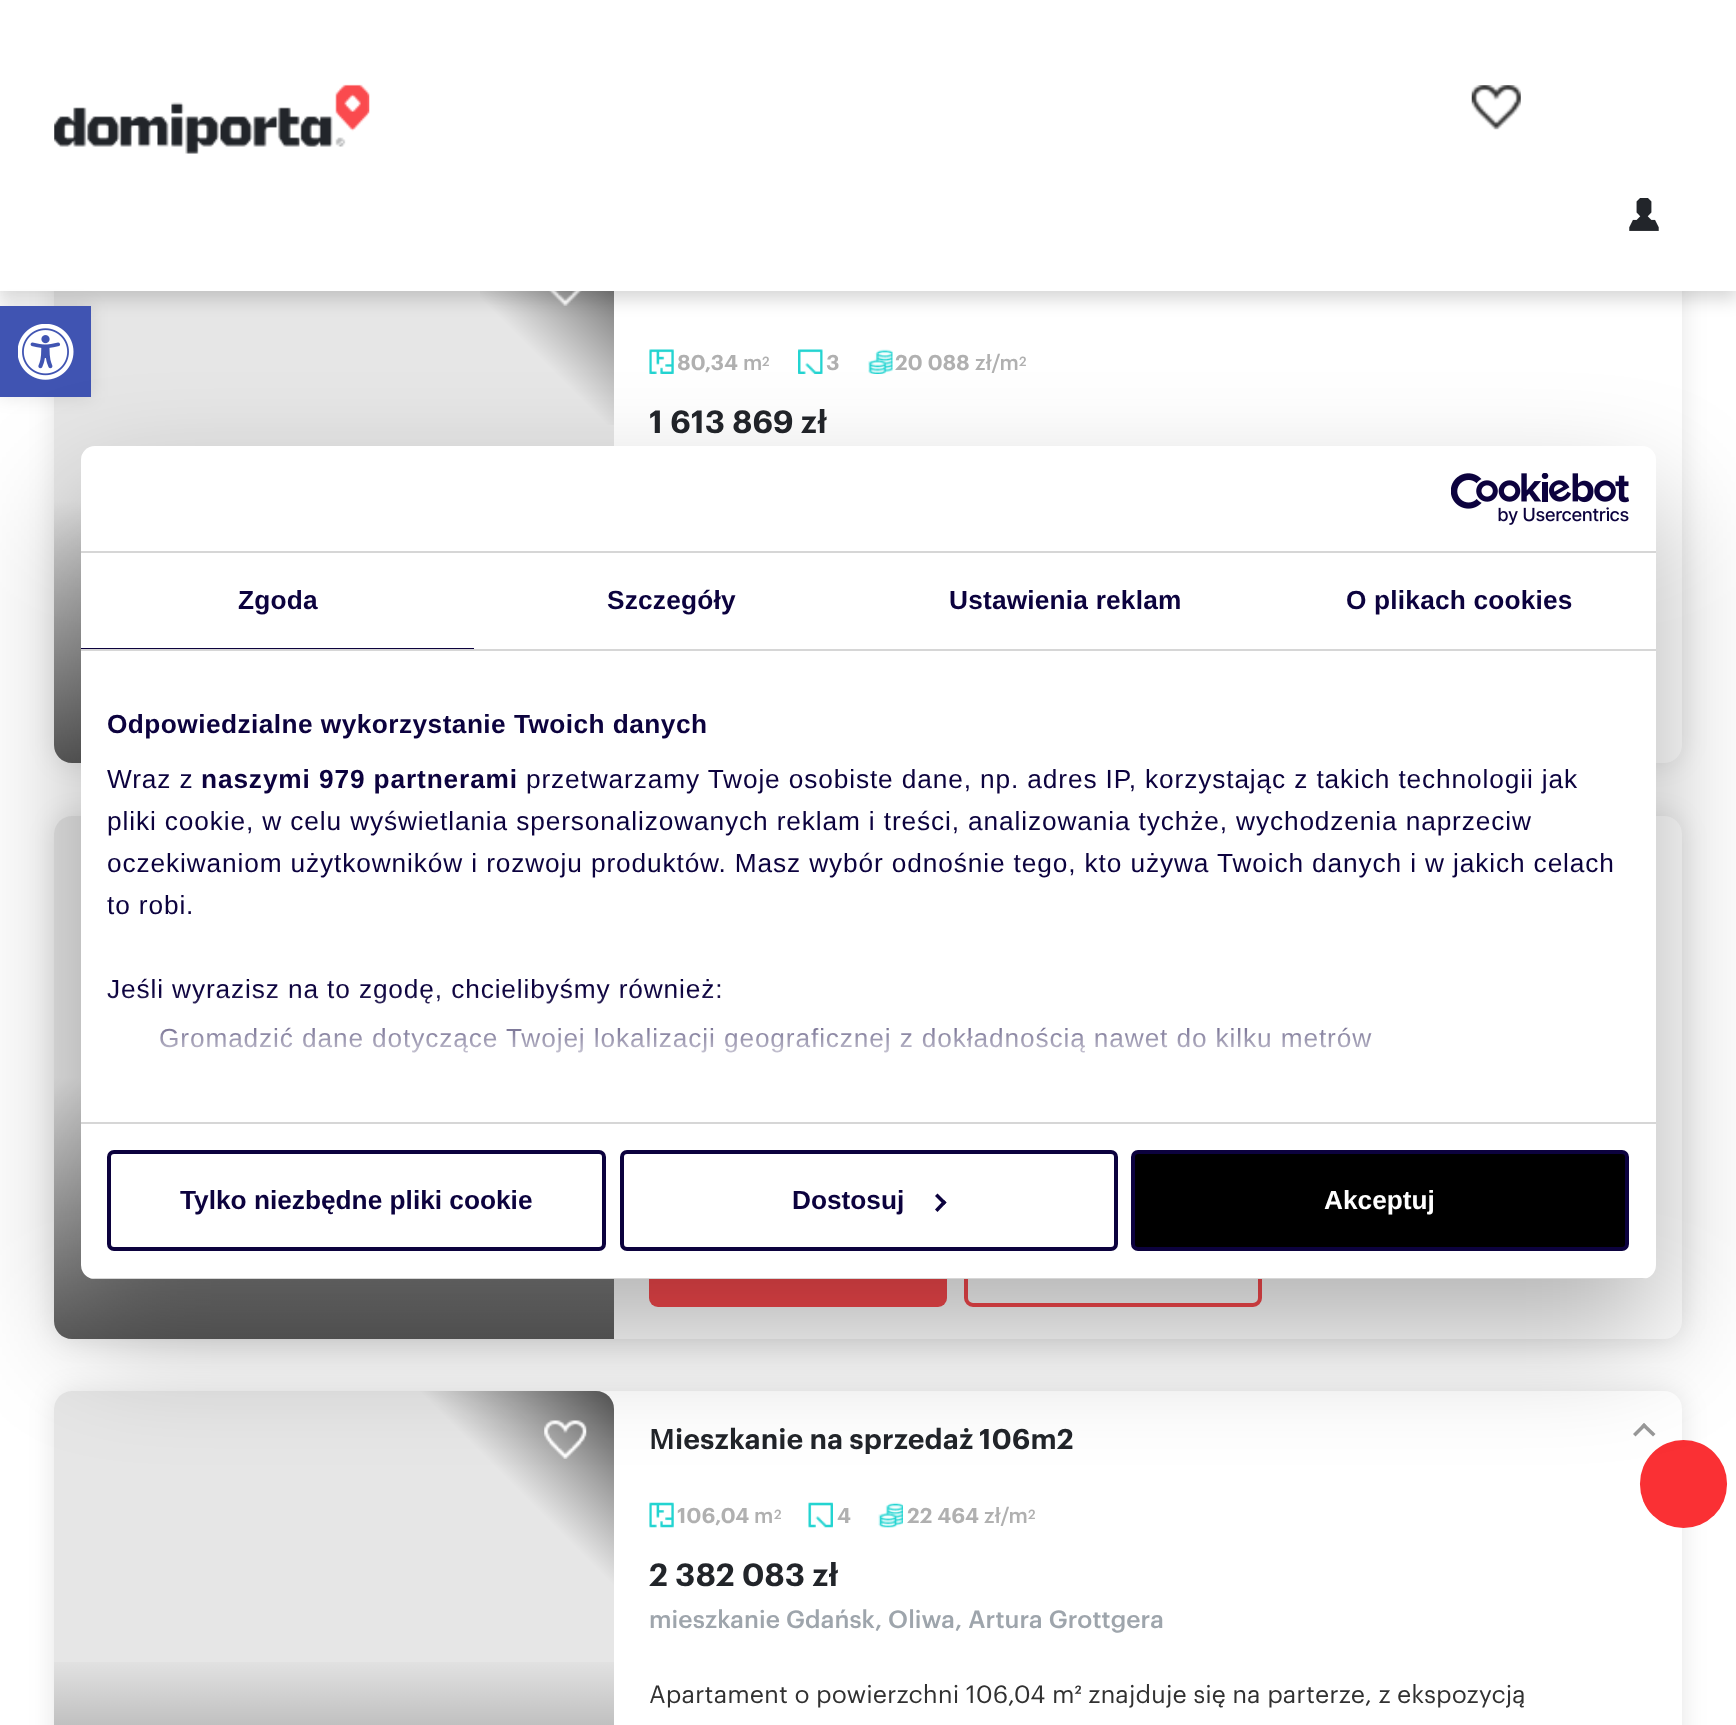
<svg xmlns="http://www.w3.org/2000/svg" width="1736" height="1725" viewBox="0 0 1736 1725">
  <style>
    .t1 { font: 600 21px Graphik; fill: #b0b0b0; }
    .t2 { font: 500 21px Graphik; fill: #b0b0b0; }
    .t3 { font: 500 13px Graphik; fill: #b0b0b0; }
    .t4 { font: 600 31.5px Graphik; fill: #22252a; }
    .t5 { font: 600 28px Noto Sans; fill: #22252a; }
    .t6 { font: 600 28px Graphik; fill: #22252a; }
    .t7 { font: 500 24.5px Graphik; fill: #9ea5ac; }
    .t8 { font: 24.5px Graphik; fill: #313131; }
    .t9 { font: bold 26.25px Liberation Sans; letter-spacing: 0.2px; fill: #0c023e; }
    .t10 { font: bold 26.25px Liberation Sans; letter-spacing: 0.45px; fill: #0c023e; }
    .t11 { font: 26.25px Liberation Sans; letter-spacing: 0.88px; fill: #0c023e; }
    .t12 { font: bold 26.25px Liberation Sans; letter-spacing: 0.88px; fill: #0c023e; }
    .t13 { font: bold 26.25px Liberation Sans; fill: #0c023e; }
    .t14 { font: bold 26.25px Liberation Sans; fill: #fff; }
  </style>
  <defs>
    <linearGradient id="g1" gradientUnits="userSpaceOnUse" x1="63" y1="772" x2="606" y2="229"><stop offset="0.82" stop-color="#000" stop-opacity="0"/><stop offset="0.99" stop-color="#000" stop-opacity="0.6"/></linearGradient>
    <linearGradient id="g2" gradientUnits="userSpaceOnUse" x1="334" y1="238" x2="334" y2="763"><stop offset="0.5" stop-color="#000" stop-opacity="0"/><stop offset="1" stop-color="#000" stop-opacity="0.6"/></linearGradient>
    <linearGradient id="g3" gradientUnits="userSpaceOnUse" x1="334" y1="816" x2="334" y2="1339"><stop offset="0.5" stop-color="#000" stop-opacity="0"/><stop offset="1" stop-color="#000" stop-opacity="0.6"/></linearGradient>
    <linearGradient id="g4" gradientUnits="userSpaceOnUse" x1="63" y1="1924" x2="605" y2="1382"><stop offset="0.82" stop-color="#000" stop-opacity="0"/><stop offset="0.99" stop-color="#000" stop-opacity="0.6"/></linearGradient>
    <linearGradient id="g5" gradientUnits="userSpaceOnUse" x1="334" y1="1391" x2="334" y2="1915"><stop offset="0.5" stop-color="#000" stop-opacity="0"/><stop offset="1" stop-color="#000" stop-opacity="0.6"/></linearGradient>
    <linearGradient id="g6" gradientUnits="userSpaceOnUse" x1="857" y1="1122" x2="857" y2="991"><stop offset="0" stop-color="#fff"/><stop offset="0.5" stop-color="#fff" stop-opacity="0.8"/><stop offset="1" stop-color="#fff" stop-opacity="0"/></linearGradient>
    <clipPath id="clip1"><rect x="81" y="446" width="1575" height="833" rx="14"/></clipPath>
  </defs>
  <rect width="100%" height="100%" fill="#fff"/>
  <rect x="54" y="238" width="1628" height="525" rx="18" fill="#0000001a" filter="blur(13px)"/>
  <rect x="54" y="238" width="1628" height="525" rx="18" fill="#fff"/>
  <path d="M72 238H596C606 238 614 246 614 256V763H72C62 763 54 755 54 745V256C54 246 62 238 72 238Z" fill="#e6e6e6"/>
  <rect x="480" y="291" width="134" height="134" fill="url(#g1)"/>
  <path d="M72 238H596C606 238 614 246 614 256V763H72C62 763 54 755 54 745V256C54 246 62 238 72 238Z" fill="url(#g2)"/>
  <image x="549" y="291" width="33" height="15" href="images/5.png"/>
  <rect x="-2" y="5" width="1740" height="294" fill="#00000029" filter="blur(9px)"/>
  <rect x="0" y="0" width="1736" height="291" fill="#fff"/>
  <rect x="0" y="306" width="91" height="91" fill="#0000001a" filter="blur(9px)"/>
  <rect x="0" y="306" width="91" height="91" fill="#4054b2"/>
  <image x="18" y="324" width="56" height="56" href="images/1.png"/>
  <image x="54" y="84" width="316" height="70" href="images/2.png"/>
  <image x="1471" y="85" width="50" height="45" href="images/3.png"/>
  <image x="1629" y="198" width="30" height="33" href="images/4.png"/>
  <image x="649" y="349" width="25" height="25" href="images/6.png"/>
  <text x="677" y="370" class="t1">80,34</text>
  <text x="743" y="370" class="t2">m</text>
  <text x="762" y="366" class="t3">2</text>
  <image x="798" y="349" width="25" height="25" href="images/7.png"/>
  <text x="826" y="370" class="t1">3</text>
  <image x="868" y="349" width="25" height="25" href="images/8.png"/>
  <text x="895" y="370" class="t1">20 088</text>
  <text x="975" y="370" class="t2">zł/m</text>
  <text x="1019" y="366" class="t3">2</text>
  <text x="649" y="433" class="t4">1 613 869 zł</text>
  <rect x="54" y="816" width="1628" height="523" rx="18" fill="#0000001a" filter="blur(13px)"/>
  <rect x="54" y="816" width="1628" height="523" rx="18" fill="#fff"/>
  <path d="M72 816H596C606 816 614 824 614 834V1339H72C62 1339 54 1331 54 1321V834C54 824 62 816 72 816Z" fill="#e6e6e6"/>
  <path d="M72 816H596C606 816 614 824 614 834V1339H72C62 1339 54 1331 54 1321V834C54 824 62 816 72 816Z" fill="url(#g3)"/>
  <rect x="649" y="1237" width="298" height="70" rx="9" fill="#fa4a4e"/>
  <rect x="966" y="1239" width="294" height="66" rx="7" fill="none" stroke="#fa4a4e" stroke-width="4"/>
  <rect x="54" y="1391" width="1628" height="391" rx="18" fill="#0000001a" filter="blur(13px)"/>
  <rect x="54" y="1391" width="1628" height="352" rx="18" fill="#fff"/>
  <path d="M72 1391H596C606 1391 614 1399 614 1409V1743H72C62 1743 54 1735 54 1725V1409C54 1399 62 1391 72 1391Z" fill="#e6e6e6"/>
  <path d="M72 1391H596C606 1391 614 1399 614 1409V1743H72C62 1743 54 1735 54 1725V1409C54 1399 62 1391 72 1391Z" fill="url(#g4)"/>
  <rect x="54" y="1662" width="560" height="63" fill="url(#g5)"/>
  <image x="544" y="1420" width="43" height="39" href="images/9.png"/>
  <text x="649" y="1449" class="t5">M</text>
  <text x="675" y="1449" class="t6">ieszkanie na sprzedaż 106m2</text>
  <image x="649" y="1502" width="25" height="26" href="images/10.png"/>
  <text x="677" y="1523" class="t1">106,04</text>
  <text x="754" y="1523" class="t2">m</text>
  <text x="774" y="1519" class="t3">2</text>
  <image x="808" y="1502" width="25" height="26" href="images/11.png"/>
  <text x="837" y="1523" class="t1">4</text>
  <image x="878" y="1502" width="25" height="26" href="images/12.png"/>
  <text x="907" y="1523" class="t1">22 464</text>
  <text x="984" y="1523" class="t2">zł/m</text>
  <text x="1028" y="1519" class="t3">2</text>
  <path d="M1633 1434L1644 1423L1646.5 1425.5L1635.5 1436.5Z" fill="#999"/>
  <path d="M1641.5 1425.5L1644 1423L1655.5 1434L1653 1436.5Z" fill="#999"/>
  <text x="649" y="1586" class="t4">2 382 083 zł</text>
  <text x="649" y="1628" class="t7">mieszkanie Gdańsk, Oliwa, Artura Grottgera</text>
  <text x="649" y="1703" class="t8">Apartament o powierzchni 106,04 m² znajduje się na parterze, z ekspozycją</text>
  <rect x="1640" y="1440" width="87" height="88" rx="43.5" fill="#fa3034"/>
  <rect x="81" y="502" width="1575" height="833" rx="14" fill="#0000004d" filter="blur(59.5px)"/>
  <rect x="81" y="446" width="1575" height="833" rx="14" fill="#fff"/>
  <rect x="81" y="551" width="1575" height="2" fill="#d6d6d6"/>
  <image x="1451" y="473" width="178" height="52" href="images/13.png"/>
  <rect x="81" y="649" width="1575" height="2" fill="#d6d6d6"/>
  <rect x="81" y="648" width="393" height="1" fill="#0c023e"/>
  <text x="238" y="609" class="t9">Zgoda</text>
  <text x="607" y="609" class="t9">Szczegóły</text>
  <text x="949" y="609" class="t9">Ustawienia reklam</text>
  <text x="1346" y="609" class="t9">O plikach cookies</text>
  <rect x="81" y="1122" width="1575" height="2" fill="#d6d6d6"/>
  <text x="107" y="733" class="t10">Odpowiedzialne wykorzystanie Twoich danych</text>
  <text x="107" y="788" class="t11">Wraz z</text>
  <text x="201" y="788" class="t12">naszymi 979 partnerami</text>
  <text x="526" y="788" class="t11">przetwarzamy Twoje osobiste dane, np. adres IP, korzystając z takich technologii jak</text>
  <text x="107" y="830" class="t11">pliki cookie, w celu wyświetlania spersonalizowanych reklam i treści, analizowania tychże, wychodzenia naprzeciw</text>
  <text x="107" y="872" class="t11">oczekiwaniom użytkowników i rozwoju produktów. Masz wybór odnośnie tego, kto używa Twoich danych i w jakich celach</text>
  <text x="107" y="914" class="t11">to robi.</text>
  <text x="107" y="998" class="t11">Jeśli wyrazisz na to zgodę, chcielibyśmy również:</text>
  <text x="159" y="1047" class="t11">Gromadzić dane dotyczące Twojej lokalizacji geograficznej z dokładnością nawet do kilku metrów</text>
  <rect x="107" y="993" width="1264" height="60" fill="url(#g6)"/>
  <g clip-path="url(#clip1)">
    <rect x="90" y="1278" width="1557" height="1" fill="#d6d6d6"/>
  </g>
  <rect x="109" y="1152" width="495" height="97" rx="5" fill="none" stroke="#0c023e" stroke-width="4"/>
  <text x="180" y="1209" class="t13">Tylko niezbędne pliki cookie</text>
  <rect x="622" y="1152" width="494" height="97" rx="5" fill="none" stroke="#0c023e" stroke-width="4"/>
  <text x="792" y="1209" class="t13">Dostosuj</text>
  <path d="M937.5 1193.5L946.5 1202.5L944 1205L935 1196Z" fill="#0c023e"/>
  <path d="M944 1200L946.5 1202.5L937.5 1212L935 1209.5Z" fill="#0c023e"/>
  <rect x="1133" y="1152" width="494" height="97" rx="5" fill="#000" stroke="#0c023e" stroke-width="4"/>
  <text x="1324" y="1209" class="t14">Akceptuj</text>
</svg>
